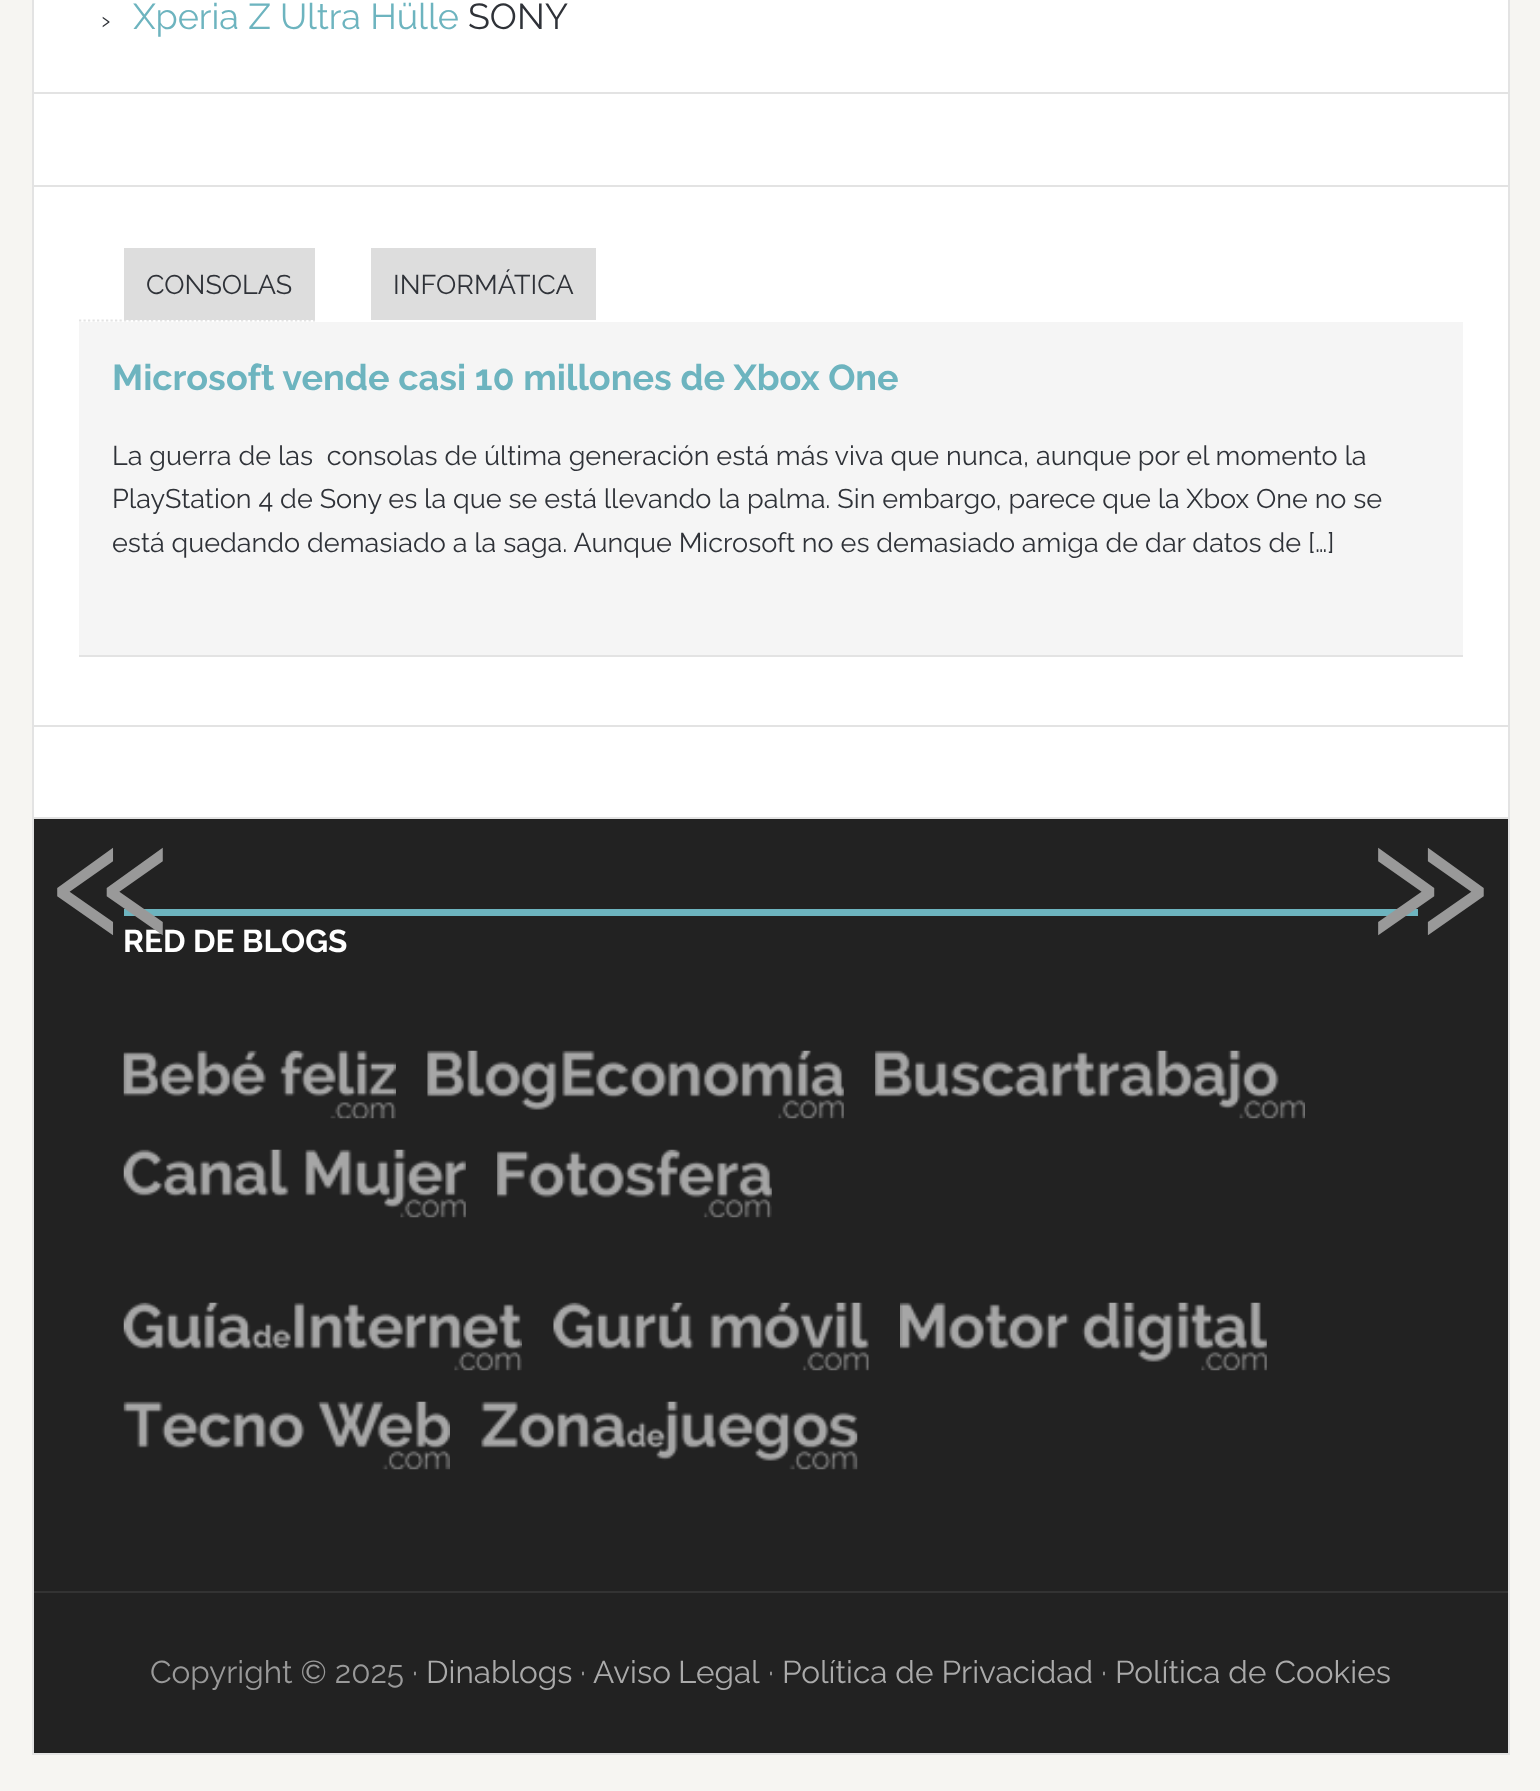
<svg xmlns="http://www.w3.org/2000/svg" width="1540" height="1791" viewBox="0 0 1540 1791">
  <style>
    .t1 { font: 27px Raleway; fill: #2f3238; }
    .t2 { font: 36px Raleway; fill: #6db4bf; }
    .t3 { font: 36px Raleway; fill: #2f3238; }
    .t4 { font: bold 36px Raleway; fill: #6db4bf; }
    .t5 { font: bold 31.5px Raleway; fill: #fff; }
    .t6 { font: 31.5px Raleway; fill: #999; }
    .t7 { font: 31.5px Raleway; fill: #aaa; }
    .t8 { font: 225px Raleway; fill: #999; }
  </style>
  <rect width="100%" height="100%" fill="#f6f5f2"/>
  <rect x="34" y="0" width="1474" height="817" fill="#fff"/>
  <rect x="1508" y="0" width="2" height="1755" fill="#e3e3e3"/>
  <rect x="32" y="1753" width="1478" height="2" fill="#e3e3e3"/>
  <rect x="32" y="0" width="2" height="1755" fill="#e3e3e3"/>
  <rect x="34" y="92" width="1474" height="2" fill="#e3e3e3"/>
  <text x="101" y="29" class="t1">›</text>
  <text x="133" y="29" class="t2">Xperia Z Ultra Hülle</text>
  <text x="468" y="29" class="t3">SONY</text>
  <rect x="34" y="185" width="1474" height="2" fill="#e3e3e3"/>
  <rect x="34" y="725" width="1474" height="2" fill="#e3e3e3"/>
  <path d="M79 320.5H315" fill="none" stroke="#e3e3e3" stroke-width="2.2" stroke-dasharray="2.25 2.25"/>
  <rect x="124" y="248" width="191" height="72" fill="#ddd"/>
  <text x="146" y="294" class="t1">CONSOLAS</text>
  <rect x="371" y="248" width="225" height="72" fill="#ddd"/>
  <text x="393" y="294" class="t1">INFORMÁTICA</text>
  <rect x="79" y="322" width="1384" height="333" fill="#f5f5f5"/>
  <rect x="79" y="655" width="1384" height="2" fill="#e3e3e3"/>
  <text x="112" y="390" class="t4">Microsoft vende casi 10 millones de Xbox One</text>
  <text x="112" y="465" class="t1" xml:space="preserve">La guerra de las  consolas de última generación está más viva que nunca, aunque por el momento la</text>
  <text x="112" y="508" class="t1">PlayStation 4 de Sony es la que se está llevando la palma. Sin embargo, parece que la Xbox One no se</text>
  <text x="112" y="552" class="t1">está quedando demasiado a la saga. Aunque Microsoft no es demasiado amiga de dar datos de […]</text>
  <rect x="34" y="817" width="1474" height="2" fill="#e3e3e3"/>
  <rect x="34" y="819" width="1474" height="772" fill="#222"/>
  <rect x="124" y="909" width="1294" height="7" fill="#6db4bf"/>
  <text x="123" y="952" class="t5">RED DE BLOGS</text>
  <image x="123" y="1050" width="273" height="69" href="images/1.png"/>
  <image x="427" y="1050" width="417" height="69" href="images/2.png"/>
  <image x="875" y="1050" width="430" height="69" href="images/3.png"/>
  <image x="123" y="1149" width="343" height="69" href="images/4.png"/>
  <image x="497" y="1149" width="275" height="69" href="images/5.png"/>
  <image x="123" y="1302" width="399" height="69" href="images/6.png"/>
  <image x="553" y="1302" width="316" height="69" href="images/7.png"/>
  <image x="900" y="1302" width="367" height="69" href="images/8.png"/>
  <image x="123" y="1401" width="327" height="69" href="images/9.png"/>
  <image x="481" y="1401" width="377" height="69" href="images/10.png"/>
  <rect x="34" y="1593" width="1474" height="160" fill="#222"/>
  <rect x="34" y="1591" width="1474" height="2" fill="#333"/>
  <text x="150" y="1683" class="t6">Copyright © 2025 ·</text>
  <text x="426" y="1683" class="t7">Dinablogs</text>
  <text x="580" y="1683" class="t6">·</text>
  <text x="593" y="1683" word-spacing="-1" class="t7">Aviso Legal</text>
  <text x="768" y="1683" class="t6">·</text>
  <text x="782" y="1683" class="t7">Política de Privacidad</text>
  <text x="1101" y="1683" class="t6">·</text>
  <text x="1115" y="1683" class="t7">Política de Cookies</text>
  <text x="48" y="950" class="t8">«</text>
  <text x="1364" y="950" class="t8">»</text>
</svg>
